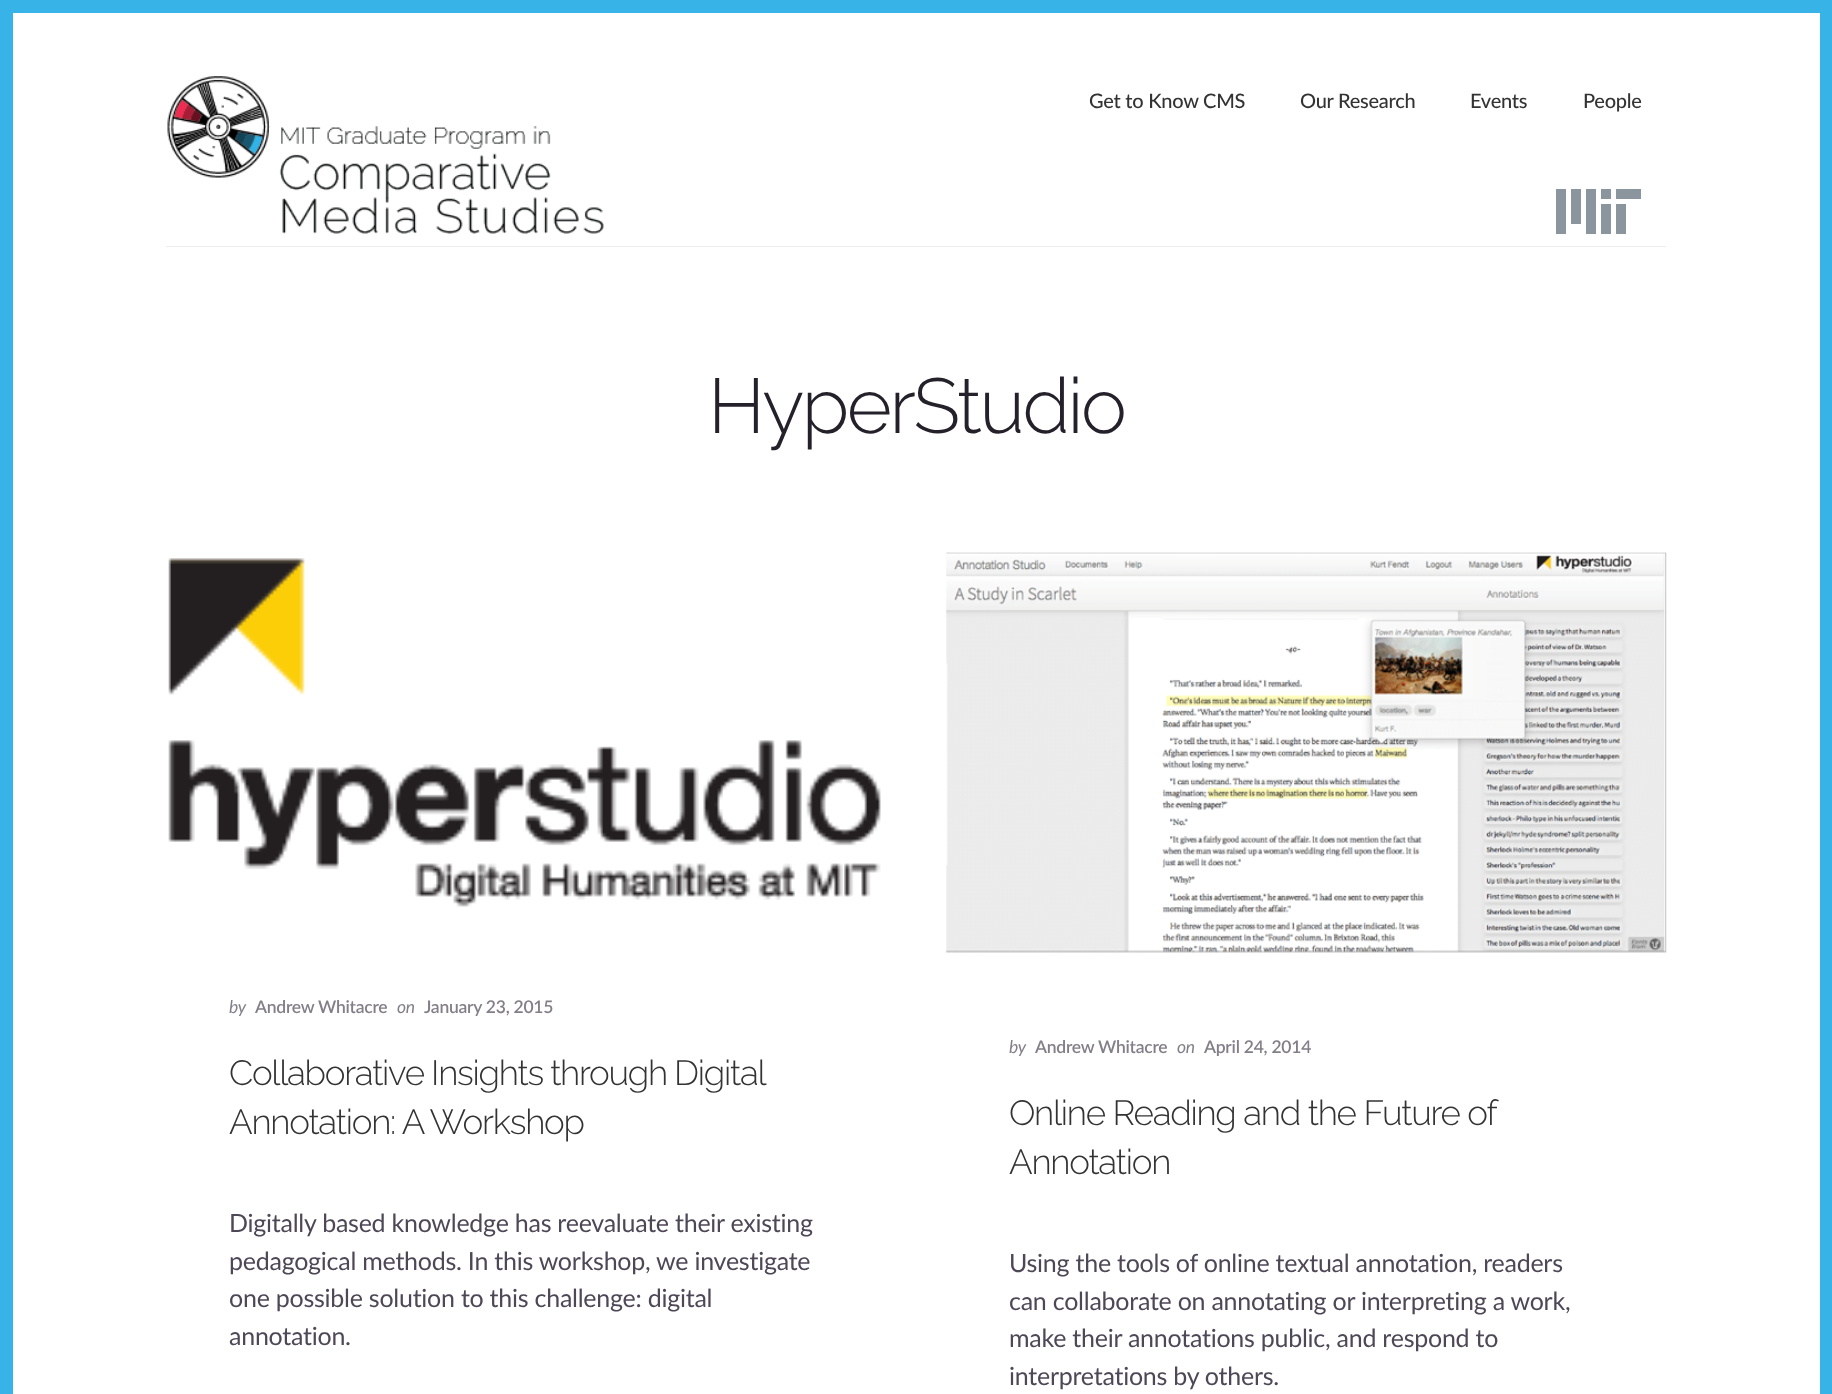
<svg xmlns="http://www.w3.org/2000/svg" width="1832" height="1394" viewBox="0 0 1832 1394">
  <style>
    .t1 { font: 500 20px Lato; letter-spacing: -0.25px; fill: #333; }
    .t2 { font: 300 77.5px Raleway; letter-spacing: -2.5px; fill: #25212a; }
    .t3 { font: italic 17.5px Lato; letter-spacing: -0.25px; fill: #837e88; }
    .t4 { font: 600 17.5px Lato; letter-spacing: -0.25px; fill: #837e88; }
    .t5 { font: 300 35px Raleway; letter-spacing: -1.25px; fill: #333; }
    .t6 { font: 25px Lato; letter-spacing: -0.25px; fill: #4e4756; }
  </style>
  <rect width="100%" height="100%" fill="#37b3e7"/>
  <rect x="13" y="13" width="1807" height="1381" fill="#fff"/>
  <rect x="166" y="246" width="1500" height="1" fill="#edecee"/>
  <image x="167" y="76" width="437" height="158" href="images/1.png"/>
  <text x="1089" y="108" class="t1">Get to Know CMS</text>
  <text x="1300" y="108" class="t1">Our Research</text>
  <text x="1470" y="108" class="t1">Events</text>
  <text x="1583" y="108" class="t1">People</text>
  <path d="M1601 234H1611V204H1601ZM1616 199H1641V189H1616ZM1601 189H1611V199H1601ZM1586 234H1596V189H1586ZM1571 224H1581V189H1571ZM1556 234H1566V189H1556ZM1616 234H1626V204H1616Z" fill="#8b959e"/>
  <text x="708" y="433" class="t2">HyperStudio</text>
  <image x="168" y="558" width="713" height="349" href="images/2.png"/>
  <text x="229" y="1013" class="t3">by</text>
  <text x="255" y="1013" class="t4">Andrew Whitacre</text>
  <text x="397" y="1013" class="t3">on</text>
  <text x="424" y="1013" class="t4">January 23, 2015</text>
  <text x="229" y="1085" word-spacing="-0.5" class="t5">Collaborative Insights through Digital</text>
  <text x="229" y="1134" class="t5">Annotation: A Workshop</text>
  <text x="229" y="1232" class="t6">Digitally based knowledge has reevaluate their existing</text>
  <text x="229" y="1270" class="t6">pedagogical methods. In this workshop, we investigate</text>
  <text x="229" y="1307" class="t6">one possible solution to this challenge: digital</text>
  <text x="229" y="1345" class="t6">annotation.</text>
  <image x="946" y="552" width="721" height="401" href="images/3.png"/>
  <text x="1009" y="1053" class="t3">by</text>
  <text x="1035" y="1053" class="t4">Andrew Whitacre</text>
  <text x="1177" y="1053" class="t3">on</text>
  <text x="1204" y="1053" class="t4">April 24, 2014</text>
  <text x="1009" y="1125" class="t5">Online Reading and the Future of</text>
  <text x="1009" y="1174" class="t5">Annotation</text>
  <text x="1009" y="1272" class="t6">Using the tools of online textual annotation, readers</text>
  <text x="1009" y="1310" class="t6">can collaborate on annotating or interpreting a work,</text>
  <text x="1009" y="1347" class="t6">make their annotations public, and respond to</text>
  <text x="1009" y="1385" class="t6">interpretations by others.</text>
</svg>
